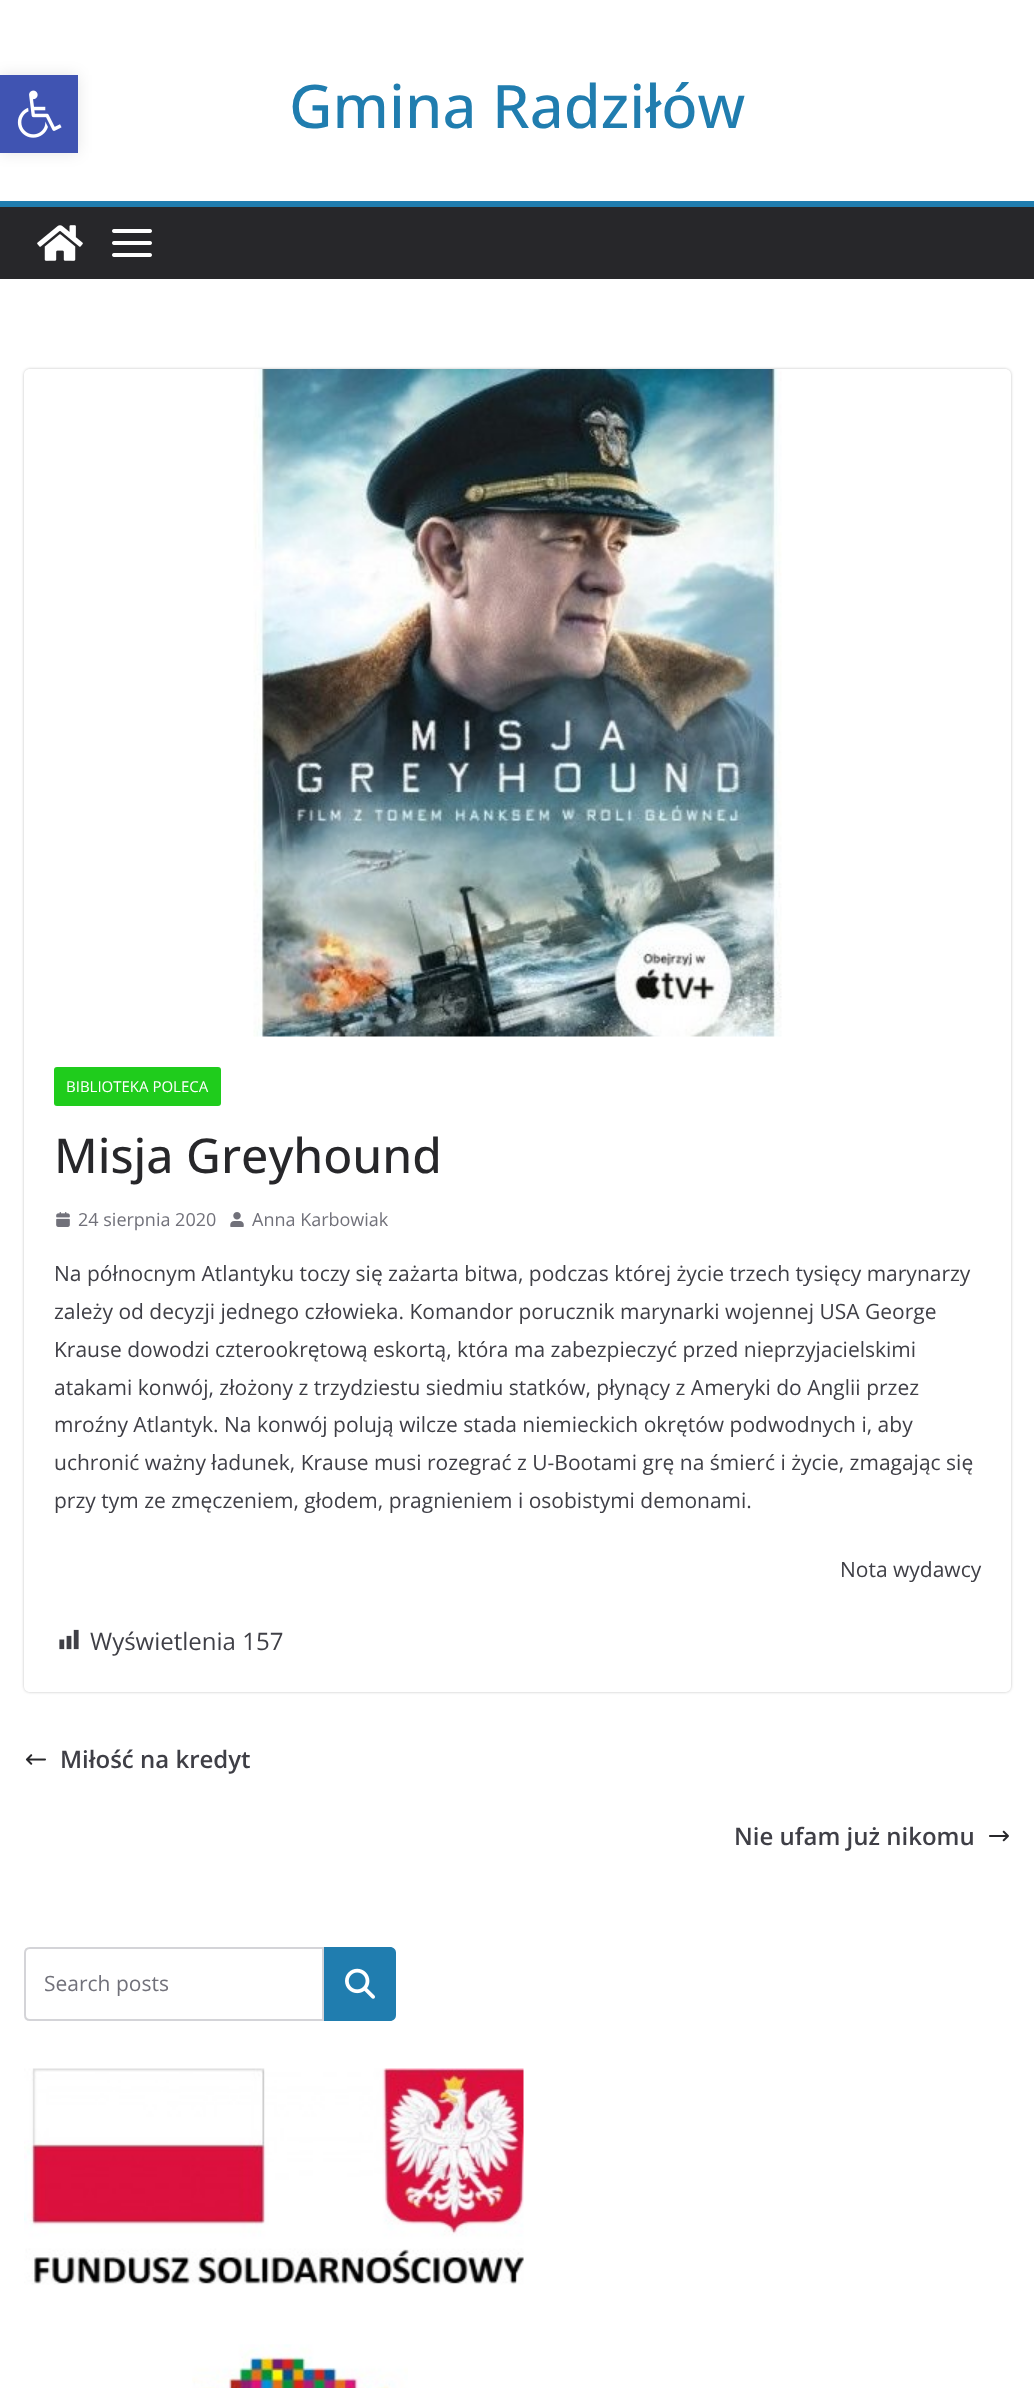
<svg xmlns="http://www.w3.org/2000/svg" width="1034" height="2388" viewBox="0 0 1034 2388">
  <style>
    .t1 { font: 500 60px Open Sans; fill: #207daf; }
    .t2 { font: 15px Open Sans; fill: #fff; }
    .t3 { font: 500 48px Open Sans; fill: #27272a; }
    .t4 { font: 18px Open Sans; fill: #71717a; }
    .t5 { font: 21px Open Sans; fill: #3f3f46; }
    .t6 { font: 24px Open Sans; fill: #3f3f46; }
    .t7 { font: 600 24px Open Sans; fill: #3f3f46; }
    .t8 { font: 21px Open Sans; fill: #71717a; }
  </style>
  <defs>
    <clipPath id="clip1"><path d="M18 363H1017V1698H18ZM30 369H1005C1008.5 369 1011 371.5 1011 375V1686C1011 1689.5 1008.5 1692 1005 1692H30C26.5 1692 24 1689.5 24 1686V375C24 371.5 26.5 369 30 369Z" clip-rule="evenodd"/></clipPath>
  </defs>
  <rect width="100%" height="100%" fill="#fff"/>
  <rect x="0" y="75" width="78" height="78" fill="#0000001a" filter="blur(7.5px)"/>
  <rect x="0" y="75" width="78" height="78" fill="#4054b2"/>
  <image x="17" y="90" width="45" height="48" href="images/1.png"/>
  <text x="289" y="128" class="t1">Gmina Radziłów</text>
  <rect x="0" y="207" width="1034" height="72" fill="#27272a"/>
  <rect x="0" y="201" width="1034" height="6" fill="#207daf"/>
  <image x="37" y="225" width="46" height="36" href="images/2.png"/>
  <image x="112" y="229" width="40" height="28" href="images/3.png"/>
  <g clip-path="url(#clip1)">
    <rect x="24" y="369" width="987" height="1323" rx="6" fill="#0000003d" filter="blur(1.5px)"/>
  </g>
  <image x="253" y="369" width="529" height="668" href="images/4.png"/>
  <rect x="54" y="1067" width="167" height="39" rx="3" fill="#1fcc1c"/>
  <text x="66" y="1092" class="t2">BIBLIOTEKA POLECA</text>
  <text x="54" y="1173" class="t3">Misja Greyhound</text>
  <image x="56" y="1212" width="14" height="15" href="images/5.png"/>
  <text x="78" y="1226" class="t4">24 sierpnia 2020</text>
  <image x="230" y="1212" width="14" height="15" href="images/6.png"/>
  <text x="252" y="1226" class="t4">Anna Karbowiak</text>
  <text x="54" y="1281" class="t5">Na północnym Atlantyku toczy się zażarta bitwa, podczas której życie trzech tysięcy marynarzy</text>
  <text x="54" y="1319" class="t5">zależy od decyzji jednego człowieka. Komandor porucznik marynarki wojennej USA George</text>
  <text x="54" y="1357" class="t5">Krause dowodzi czterookrętową eskortą, która ma zabezpieczyć przed nieprzyjacielskimi</text>
  <text x="54" y="1395" class="t5">atakami konwój, złożony z trzydziestu siedmiu statków, płynący z Ameryki do Anglii przez</text>
  <text x="54" y="1432" class="t5">mroźny Atlantyk. Na konwój polują wilcze stada niemieckich okrętów podwodnych i, aby</text>
  <text x="54" y="1470" class="t5">uchronić ważny ładunek, Krause musi rozegrać z U-Bootami grę na śmierć i życie, zmagając się</text>
  <text x="54" y="1508" class="t5">przy tym ze zmęczeniem, głodem, pragnieniem i osobistymi demonami.</text>
  <text x="840" y="1577" class="t5">Nota wydawcy</text>
  <image x="59" y="1629" width="20" height="21" href="images/7.png"/>
  <text x="90" y="1650" class="t6">Wyświetlenia 157</text>
  <image x="25" y="1754" width="21" height="11" href="images/8.png"/>
  <text x="60" y="1768" class="t7">Miłość na kredyt</text>
  <text x="734" y="1845" class="t7">Nie ufam już nikomu</text>
  <image x="989" y="1830" width="20" height="12" href="images/9.png"/>
  <path d="M30 1948H323V2020H30C27 2020 25 2018 25 2015V1953C25 1950 27 1948 30 1948Z" fill="none" stroke="#d4d4d8" stroke-width="2"/>
  <text x="44" y="1991" class="t8">Search posts</text>
  <path d="M324 1947H390C393.5 1947 396 1949.5 396 1953V2015C396 2018.5 393.5 2021 390 2021H324Z" fill="#207daf"/>
  <image x="345" y="1968" width="30" height="31" href="images/10.png"/>
  <image x="24" y="2068" width="500" height="217" href="images/11.png"/>
  <image x="192" y="2344" width="216" height="44" href="images/12.png"/>
</svg>
